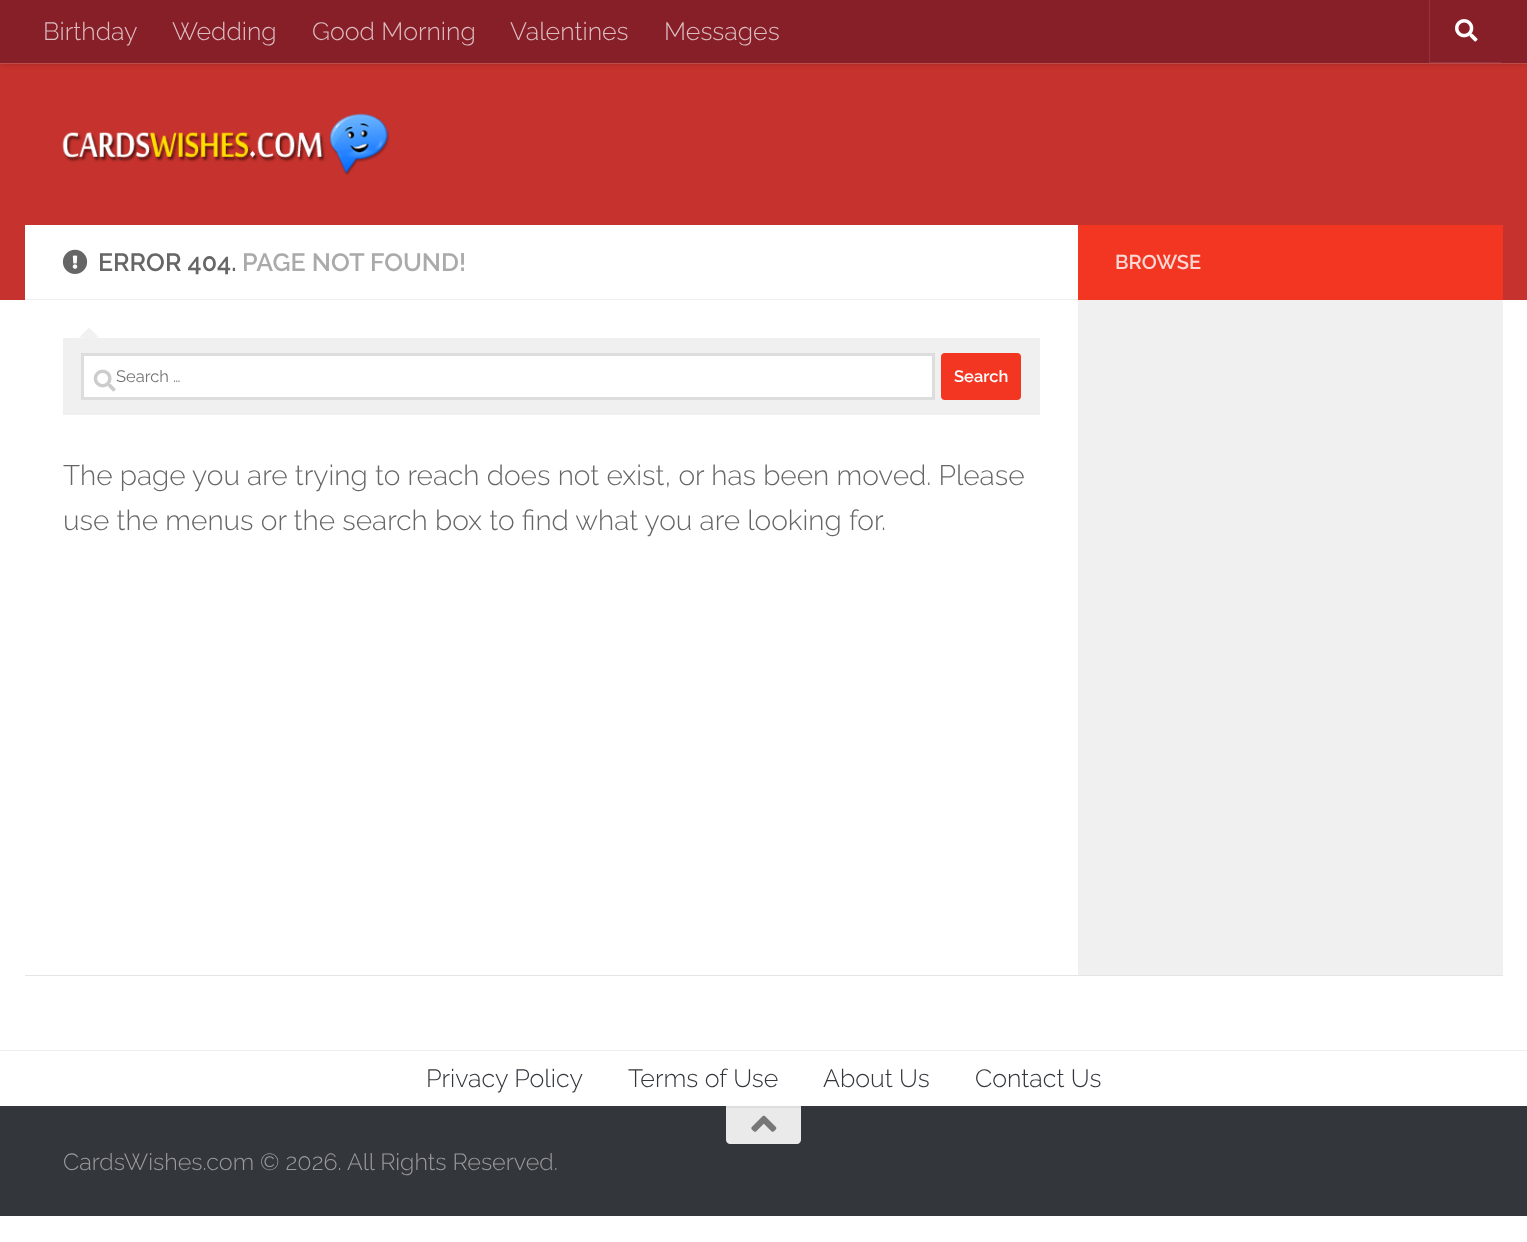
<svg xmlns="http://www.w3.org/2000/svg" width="1527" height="1242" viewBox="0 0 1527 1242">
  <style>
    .t1 { font: 300 25px Raleway; fill: #dbbcbf; }
    .t2 { font: 600 25px Raleway; fill: #666; }
    .t3 { font: 600 25px Raleway; fill: #aaa; }
    .t4 { font: 16.5px Raleway; fill: #757575; }
    .t5 { font: 600 16.5px Raleway; fill: #fff; }
    .t6 { font: 300 28.1px Raleway; fill: #666; }
    .t7 { font: 600 20px Raleway; fill: #fcd7d3; }
    .t8 { font: 300 25px Raleway; fill: #33363b; }
    .t9 { font: 300 23.4px Raleway; fill: #999b9d; }
  </style>
  <rect width="100%" height="100%" fill="#fff"/>
  <rect x="25" y="226" width="1478" height="750" fill="#0000001a" filter="blur(0.5px)"/>
  <rect x="0" y="64" width="1527" height="236" fill="#c6322d"/>
  <path d="M0 62V64H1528V1V62Z" fill="#cf514d"/>
  <rect x="0" y="0" width="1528" height="63" fill="#00000033" filter="blur(3px)"/>
  <rect x="0" y="0" width="1527" height="63" fill="#871f29"/>
  <text x="43" y="40" class="t1">Birthday</text>
  <text x="172" y="40" class="t1">Wedding</text>
  <text x="312" y="40" class="t1">Good Morning</text>
  <text x="510" y="40" class="t1">Valentines</text>
  <text x="664" y="40" class="t1">Messages</text>
  <path d="M1429 0V63H1501V62H1430V0Z" fill="#93353e"/>
  <image x="1455" y="19" width="23" height="23" href="images/1.png"/>
  <image x="62" y="113" width="328" height="62" href="images/2.png"/>
  <rect x="25" y="225" width="1053" height="750" fill="#fff"/>
  <rect x="25" y="299" width="1053" height="1" fill="#eee"/>
  <image x="62" y="249" width="26" height="25" href="images/3.png"/>
  <text x="98" y="271" class="t2">ERROR 404.</text>
  <text x="242" y="271" class="t3">PAGE NOT FOUND!</text>
  <rect x="63" y="338" width="977" height="77" fill="#f0f0f0"/>
  <path d="M99 337.5H79L89 327.5Z" fill="#f1f1f1"/>
  <path d="M96 339H81L89 331Z" fill="#f1f1f1"/>
  <rect x="82.5" y="354.5" width="851" height="44" fill="#fff" stroke="#ddd" stroke-width="3"/>
  <image x="93" y="369" width="23" height="23" href="images/4.png"/>
  <text x="116" y="382" class="t4">Search …</text>
  <rect x="941" y="353" width="80" height="47" rx="4" fill="#f23621"/>
  <text x="954" y="382" class="t5">Search</text>
  <text x="63" y="485" class="t6">The page you are trying to reach does not exist, or has been moved. Please</text>
  <text x="63" y="530" class="t6">use the menus or the search box to find what you are looking for.</text>
  <rect x="1078" y="225" width="425" height="75" fill="#f23621"/>
  <text x="1115" y="269" class="t7">BROWSE</text>
  <rect x="1078" y="300" width="425" height="675" fill="#f0f0f0"/>
  <rect x="0" y="1050" width="1527" height="1" fill="#eee"/>
  <text x="426" y="1087" class="t8">Privacy Policy</text>
  <text x="628" y="1087" class="t8">Terms of Use</text>
  <text x="823" y="1087" class="t8">About Us</text>
  <text x="975" y="1087" class="t8">Contact Us</text>
  <rect x="0" y="1106" width="1527" height="110" fill="#33363b"/>
  <path d="M726 1106H801V1140C801 1142 799 1144 797 1144H730C728 1144 726 1142 726 1140Z" fill="#eaeaea"/>
  <rect x="726" y="1106" width="75" height="2" fill="#dedede"/>
  <image x="751" y="1115" width="26" height="17" href="images/5.png"/>
  <text x="63" y="1170" class="t9">CardsWishes.com © 2026. All Rights Reserved.</text>
</svg>
